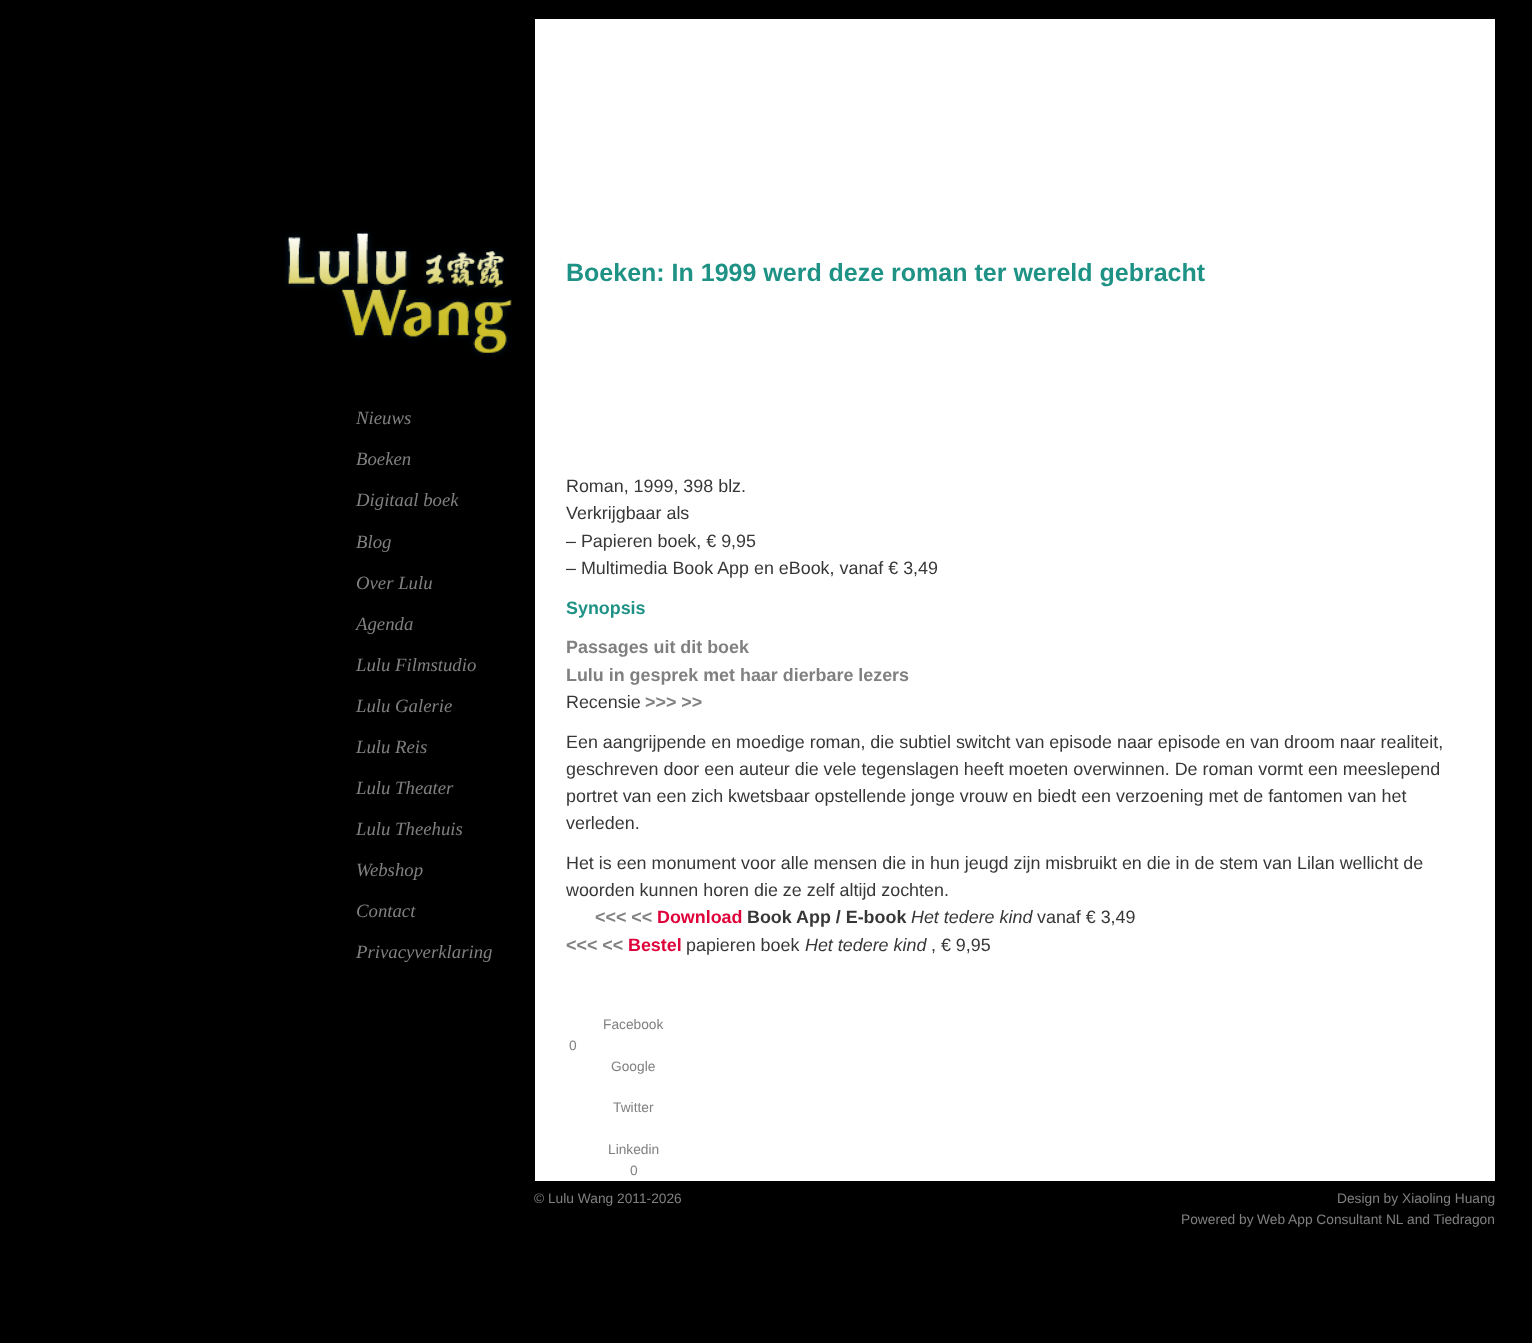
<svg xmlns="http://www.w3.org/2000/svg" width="1532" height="1343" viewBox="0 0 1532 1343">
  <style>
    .t1 { font: italic 18.75px Liberation Serif; fill: #808080; }
    .t2 { font: bold 25px Liberation Sans; fill: #1f9286; }
    .t3 { font: 17.9px Liberation Sans; fill: #373737; }
    .t4 { font: bold 17.9px Liberation Sans; fill: #1f9286; }
    .t5 { font: bold 17.9px Liberation Sans; fill: #808080; }
    .t6 { font: bold 17.9px Liberation Sans; fill: #df013a; }
    .t7 { font: bold 17.9px Liberation Sans; fill: #373737; }
    .t8 { font: italic 17.9px Liberation Sans; fill: #373737; }
    .t9 { font: 13.75px Liberation Sans; fill: #808080; }
  </style>
  <rect width="100%" height="100%" fill="#000"/>
  <rect x="535" y="19" width="960" height="1162" fill="#fff"/>
  <image x="284" y="231" width="228" height="126" href="images/1.png"/>
  <image x="285" y="231" width="227" height="125" href="images/2.png"/>
  <text x="356" y="424" class="t1">Nieuws</text>
  <text x="356" y="465" class="t1">Boeken</text>
  <text x="356" y="506" class="t1">Digitaal boek</text>
  <text x="356" y="548" class="t1">Blog</text>
  <text x="356" y="589" class="t1">Over Lulu</text>
  <text x="356" y="630" class="t1">Agenda</text>
  <text x="356" y="671" class="t1">Lulu Filmstudio</text>
  <text x="356" y="712" class="t1">Lulu Galerie</text>
  <text x="356" y="753" class="t1">Lulu Reis</text>
  <text x="356" y="794" class="t1">Lulu Theater</text>
  <text x="356" y="835" class="t1">Lulu Theehuis</text>
  <text x="356" y="876" class="t1">Webshop</text>
  <text x="356" y="917" class="t1">Contact</text>
  <text x="356" y="958" class="t1">Privacyverklaring</text>
  <text x="566" y="281" class="t2">Boeken: In 1999 werd deze roman ter wereld gebracht</text>
  <text x="566" y="492" class="t3">Roman, 1999, 398 blz.</text>
  <text x="566" y="519" class="t3">Verkrijgbaar als</text>
  <text x="566" y="547" class="t3">– Papieren boek, € 9,95</text>
  <text x="566" y="574" class="t3">– Multimedia Book App en eBook, vanaf € 3,49</text>
  <text x="566" y="614" class="t4">Synopsis</text>
  <text x="566" y="653" class="t5">Passages uit dit boek</text>
  <text x="566" y="681" class="t5">Lulu in gesprek met haar dierbare lezers</text>
  <text x="566" y="708" class="t3">Recensie</text>
  <text x="645" y="708" class="t5">&gt;&gt;&gt; &gt;&gt;</text>
  <text x="566" y="748" class="t3">Een aangrijpende en moedige roman, die subtiel switcht van episode naar episode en van droom naar realiteit,</text>
  <text x="566" y="775" class="t3">geschreven door een auteur die vele tegenslagen heeft moeten overwinnen. De roman vormt een meeslepend</text>
  <text x="566" y="802" class="t3">portret van een zich kwetsbaar opstellende jonge vrouw en biedt een verzoening met de fantomen van het</text>
  <text x="566" y="829" class="t3">verleden.</text>
  <text x="566" y="869" class="t3">Het is een monument voor alle mensen die in hun jeugd zijn misbruikt en die in de stem van Lilan wellicht de</text>
  <text x="566" y="896" class="t3">woorden kunnen horen die ze zelf altijd zochten.</text>
  <text x="595" y="923" class="t5">&lt;&lt;&lt; &lt;&lt;</text>
  <text x="657" y="923" class="t6">Download</text>
  <text x="747" y="923" class="t7">Book App / E-book</text>
  <text x="911" y="923" class="t8">Het tedere kind</text>
  <text x="1037" y="923" class="t3">vanaf € 3,49</text>
  <text x="566" y="951" class="t5">&lt;&lt;&lt; &lt;&lt;</text>
  <text x="628" y="951" class="t6">Bestel</text>
  <text x="686" y="951" class="t3">papieren boek</text>
  <text x="805" y="951" class="t8">Het tedere kind</text>
  <text x="931" y="951" class="t3">, € 9,95</text>
  <text x="603" y="1029" class="t9">Facebook</text>
  <text x="569" y="1050" class="t9">0</text>
  <text x="611" y="1071" class="t9">Google</text>
  <text x="613" y="1112" class="t9">Twitter</text>
  <text x="608" y="1154" class="t9">Linkedin</text>
  <text x="630" y="1175" class="t9">0</text>
  <text x="534" y="1203" class="t9">© Lulu Wang 2011-2026</text>
  <text x="1337" y="1203" class="t9">Design by Xiaoling Huang</text>
  <text x="1181" y="1224" class="t9">Powered by</text>
  <text x="1257" y="1224" class="t9">Web App Consultant NL</text>
  <text x="1407" y="1224" class="t9">and Tiedragon</text>
</svg>
